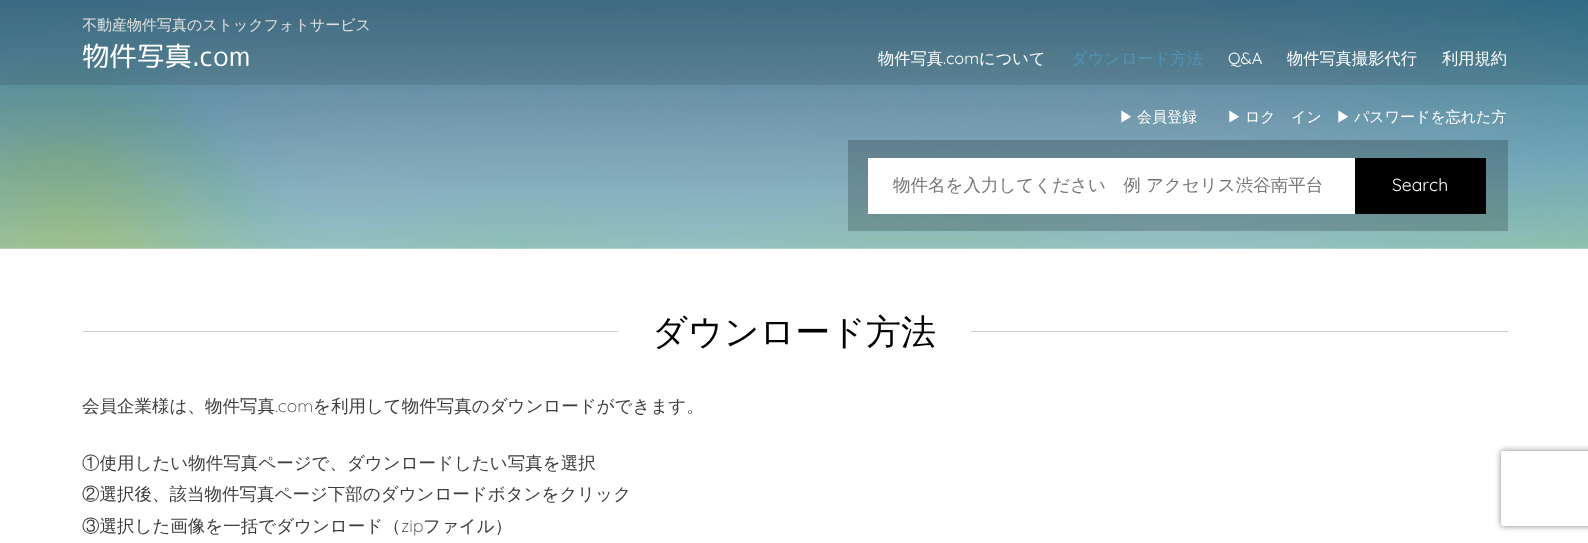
<svg xmlns="http://www.w3.org/2000/svg" width="1588" height="543" viewBox="0 0 1588 543">
  <style>*{font-kerning:none!important;font-variant-ligatures:none!important}</style>
  <style>
    .t1 { font: 500 15px WenQuanYi Zen Hei; fill: #e0e0e0; }
    .t2 { font: 27.5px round; fill: #fff; }
    .t3 { font: 500 16.25px WenQuanYi Zen Hei; fill: #fff; }
    .t4 { font: 16.25px Quicksand; fill: #fff; }
    .t5 { font: 500 16.25px WenQuanYi Zen Hei; fill: #5292b3; }
    .t6 { font: 500 15px WenQuanYi Zen Hei; fill: #fff; }
    .t7 { font: 500 17.5px WenQuanYi Zen Hei; fill: #757575; }
    .t8 { font: 17.5px Quicksand; fill: #fff; }
    .t9 { font: 500 35px WenQuanYi Zen Hei; fill: #000; }
    .t10 { font: 500 17.5px WenQuanYi Zen Hei; fill: #3d3d3d; }
    .t11 { font: 300 17.5px Quicksand; fill: #3d3d3d; }
  </style>
  <defs>
    <clipPath id="clip1"><rect x="83" y="13" width="288" height="25"/></clipPath>
    <clipPath id="clip2"><path d="M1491 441H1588V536H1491ZM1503.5 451H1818.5C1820 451 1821 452 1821 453.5V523.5C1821 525 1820 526 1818.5 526H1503.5C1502 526 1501 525 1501 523.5V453.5C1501 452 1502 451 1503.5 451Z" clip-rule="evenodd"/></clipPath>
  </defs>
  <rect width="100%" height="100%" fill="#fff"/>
  <image x="0" y="0" width="1588" height="249" href="images/1.png"/>
  <rect x="0" y="0" width="1588" height="85" fill="#0000001a"/>
  <g clip-path="url(#clip1)">
    <text x="82" y="30" class="t1">不動産物件写真のストックフォトサービス</text>
  </g>
  <text x="82" y="66" class="t2">物件写真.com</text>
  <text x="878" y="64" class="t3">物件写真</text>
  <text x="943" y="64" class="t4">.com</text>
  <text x="979" y="64" class="t3">について</text>
  <text x="1071" y="64" class="t5">ダウンロード方法</text>
  <text x="1228" y="64" class="t4">Q&amp;A</text>
  <text x="1287" y="64" class="t3">物件写真撮影代行</text>
  <text x="1442" y="64" class="t3">利用規約</text>
  <text x="1119" y="122" class="t6">▶</text>
  <text x="1137" y="122" class="t6">会員登録</text>
  <text x="1227" y="122" class="t6">▶</text>
  <text x="1245" y="122" class="t6">ログイン</text>
  <text x="1336" y="122" class="t6">▶</text>
  <text x="1354" y="122" class="t6">パスワードを忘れた方</text>
  <rect x="848" y="140" width="660" height="91" fill="#00000033"/>
  <rect x="868" y="158" width="487" height="56" fill="#fff"/>
  <text x="893" y="191" class="t7">物件名を入力してください　例 アクセリス渋谷南平台</text>
  <rect x="1355" y="158" width="131" height="56" fill="#000"/>
  <text x="1392" y="191" class="t8">Search</text>
  <rect x="83" y="331" width="535" height="1" fill="#ccc"/>
  <text x="652" y="344" class="t9">ダウンロード方法</text>
  <rect x="971" y="331" width="537" height="1" fill="#ccc"/>
  <text x="82" y="412" class="t10">会員企業様は、物件写真</text>
  <text x="275" y="412" class="t11">.com</text>
  <text x="313" y="412" class="t10">を利用して物件写真のダウンロードができます。</text>
  <text x="82" y="469" class="t10">①使用したい物件写真ページで、ダウンロードしたい写真を選択</text>
  <text x="82" y="500" class="t10">②選択後、該当物件写真ページ下部のダウンロードボタンをクリック</text>
  <text x="82" y="532" class="t10">③選択した画像を一括でダウンロード（</text>
  <text x="401" y="532" class="t11">zip</text>
  <text x="423" y="532" class="t10">ファイル）</text>
  <g clip-path="url(#clip2)">
    <rect x="1501" y="451" width="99" height="75" rx="2.5" fill="#808080" filter="blur(3px)"/>
  </g>
</svg>
